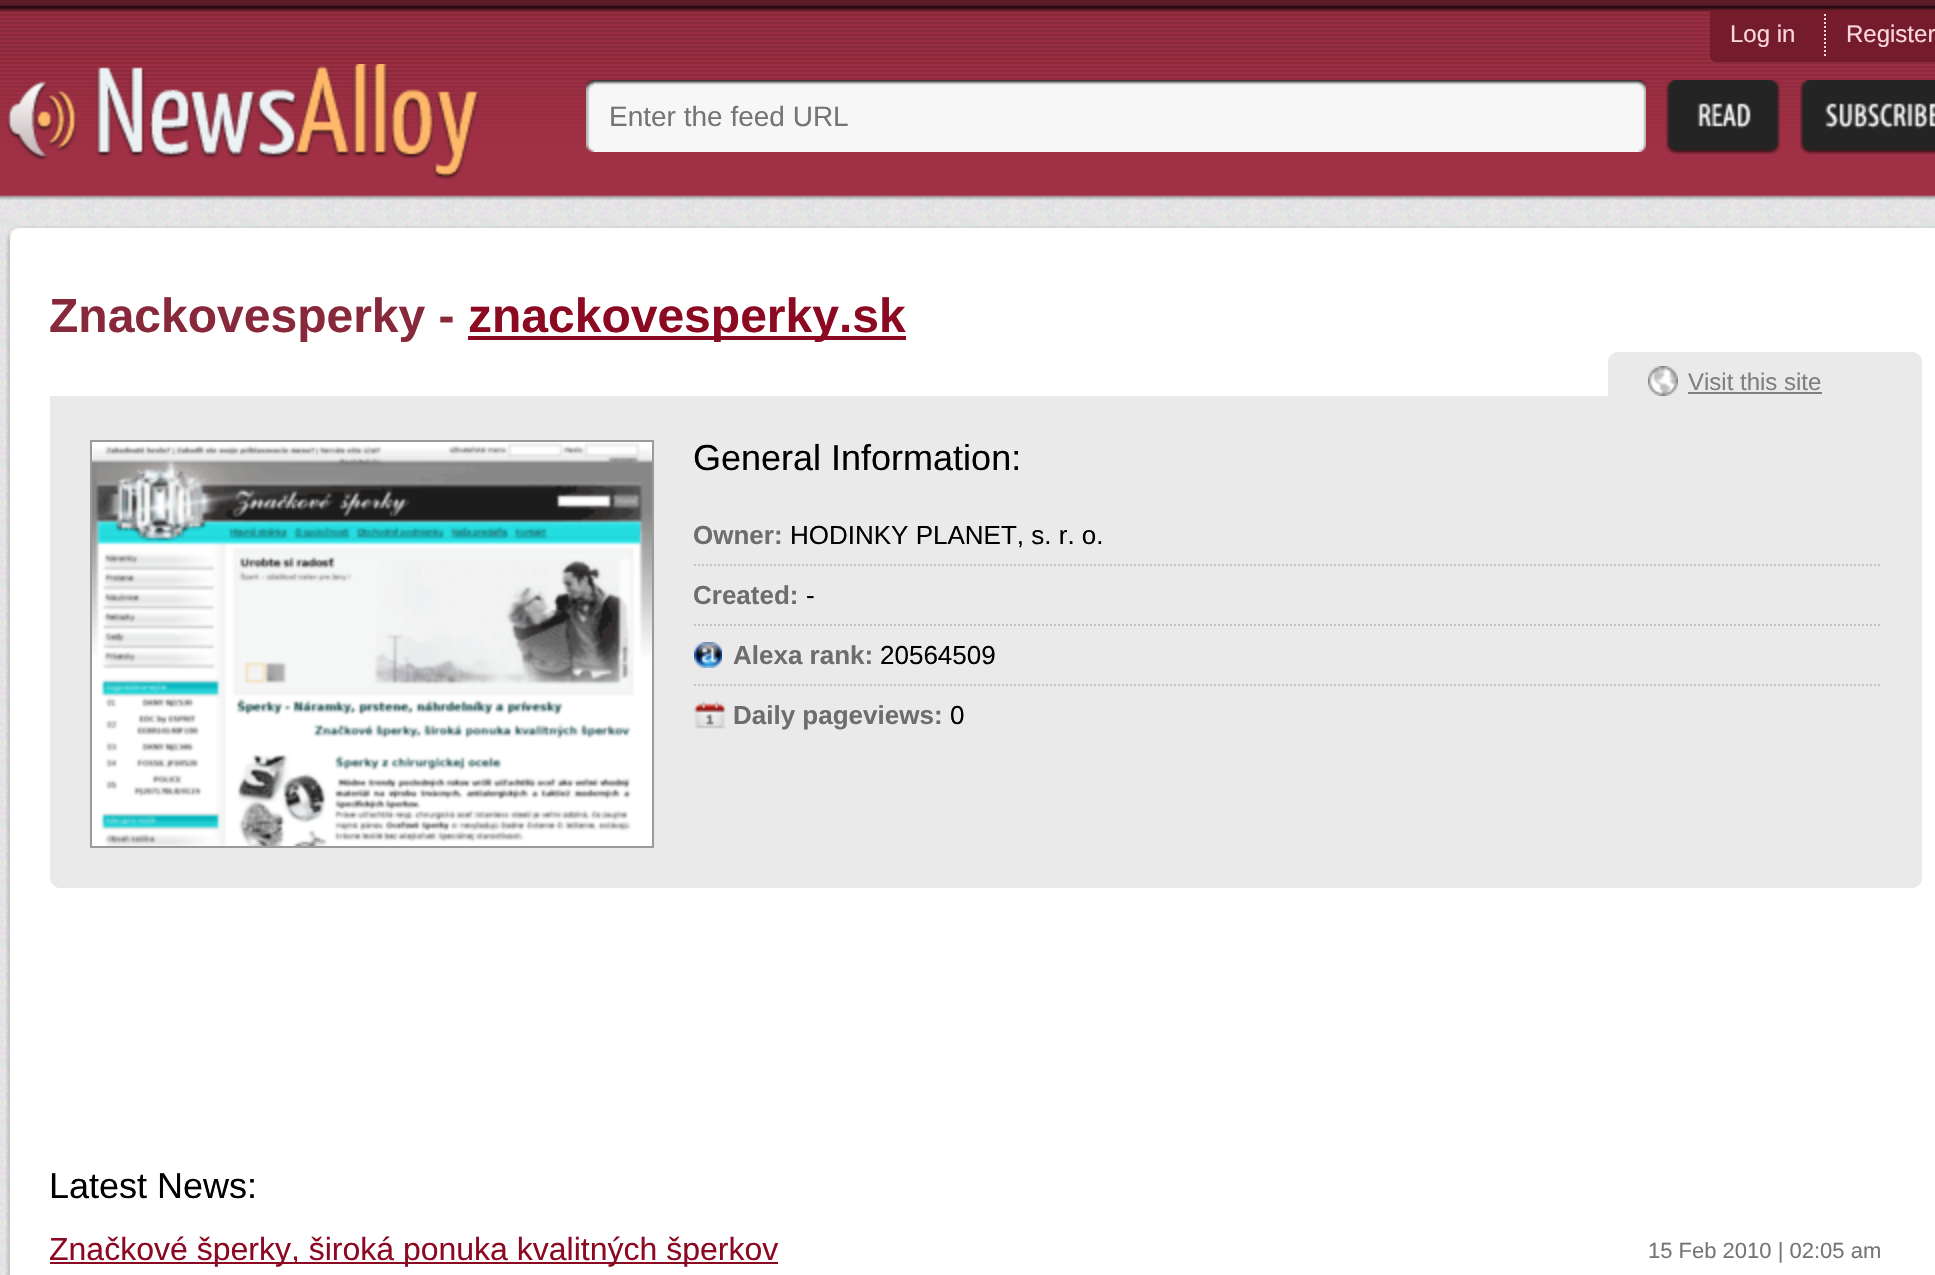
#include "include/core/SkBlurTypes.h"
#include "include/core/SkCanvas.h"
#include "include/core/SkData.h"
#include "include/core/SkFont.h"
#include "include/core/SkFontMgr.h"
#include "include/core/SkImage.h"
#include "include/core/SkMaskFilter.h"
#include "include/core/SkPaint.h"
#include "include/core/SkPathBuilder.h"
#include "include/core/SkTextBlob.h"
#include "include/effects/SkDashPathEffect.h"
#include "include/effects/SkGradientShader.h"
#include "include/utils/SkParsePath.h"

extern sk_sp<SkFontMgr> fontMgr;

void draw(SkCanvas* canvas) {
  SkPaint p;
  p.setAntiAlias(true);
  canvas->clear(SK_ColorWHITE);
  canvas->drawImageRect(SkImages::DeferredFromEncodedData(SkData::MakeFromFileName("images/8.png")), SkRect::MakeLTRB(0, 196, 1935, 1275), SkSamplingOptions());
  canvas->drawImageRect(SkImages::DeferredFromEncodedData(SkData::MakeFromFileName("images/1.png")), SkRect::MakeLTRB(0, 0, 1935, 200), SkSamplingOptions());
  p.setColor(SkColorSetRGB(116, 28, 44));
  canvas->drawPath(SkPathBuilder().moveTo(1710, 10).lineTo(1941, 10).lineTo(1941, 56).cubicTo(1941, 59.5f, 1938.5f, 62, 1935, 62).lineTo(1716, 62).cubicTo(1712.5f, 62, 1710, 59.5f, 1710, 56).close().detach(), p);
  p.setStyle(SkPaint::kStroke_Style);
  p.setStrokeWidth(2);
  p.setColor(SkColorSetRGB(252, 214, 221));
  p.setPathEffect(SkDashPathEffect::Make({{2, 2}}, 0));
  canvas->drawPath(SkPathBuilder().moveTo(1825, 14).lineTo(1825, 58).detach(), p);
  p.setPathEffect(nullptr);
  canvas->drawImageRect(SkImages::DeferredFromEncodedData(SkData::MakeFromFileName("images/2.png")), SkRect::MakeLTRB(6, 64, 480, 180), SkSamplingOptions());
  canvas->drawImageRect(SkImages::DeferredFromEncodedData(SkData::MakeFromFileName("images/3.png")), SkRect::MakeLTRB(586, 80, 594, 152), SkSamplingOptions());
  canvas->drawImageRect(SkImages::DeferredFromEncodedData(SkData::MakeFromFileName("images/4.png")), SkRect::MakeLTRB(1638, 80, 1646, 152), SkSamplingOptions());
  canvas->drawImageRect(SkImages::DeferredFromEncodedData(SkData::MakeFromFileName("images/5.png")), SkRect::MakeLTRB(594, 80, 1638, 152), SkSamplingOptions());
  canvas->drawImageRect(SkImages::DeferredFromEncodedData(SkData::MakeFromFileName("images/6.png")), SkRect::MakeLTRB(1666, 80, 1780, 154), SkSamplingOptions());
  canvas->drawImageRect(SkImages::DeferredFromEncodedData(SkData::MakeFromFileName("images/7.png")), SkRect::MakeLTRB(1800, 80, 1935, 154), SkSamplingOptions());
  p.setStyle(SkPaint::kFill_Style);
  p.setColor(SkColorSetARGB(13, 0, 0, 0));
  canvas->drawRect(SkRect::MakeLTRB(20, 226, 1935, 228), p);
  canvas->drawImageRect(SkImages::DeferredFromEncodedData(SkData::MakeFromFileName("images/9.png")), SkRect::MakeLTRB(6, 240, 10, 1275), SkSamplingOptions());
  p.setColor(SK_ColorWHITE);
  canvas->drawRect(SkRect::MakeLTRB(10, 228, 1935, 1275), p);
  canvas->drawImageRect(SkImages::DeferredFromEncodedData(SkData::MakeFromFileName("images/10.png")), SkRect::MakeLTRB(6, 226, 20, 240), SkSamplingOptions());
  p.setColor(SkColorSetRGB(140, 9, 34));
  canvas->drawRect(SkRect::MakeLTRB(468, 336, 906, 340), p);
  p.setColor(SkColorSetRGB(234, 234, 234));
  canvas->drawRect(SkRect::MakeLTRB(50, 396, 1608, 400), p);
  canvas->drawPath(SkPathBuilder().moveTo(50, 400).lineTo(1922, 400).lineTo(1922, 878).cubicTo(1922, 883.5f, 1917.5f, 888, 1912, 888).lineTo(60, 888).cubicTo(54.5f, 888, 50, 883.5f, 50, 878).close().detach(), p);
  canvas->drawPath(SkPathBuilder().moveTo(1618, 352).lineTo(1912, 352).cubicTo(1917.5f, 352, 1922, 356.5f, 1922, 362).lineTo(1922, 406).lineTo(1608, 406).lineTo(1608, 362).cubicTo(1608, 356.5f, 1612.5f, 352, 1618, 352).close().detach(), p);
  canvas->drawImageRect(SkImages::DeferredFromEncodedData(SkData::MakeFromFileName("images/11.png")), SkRect::MakeLTRB(1648, 366, 1678, 396), SkSamplingOptions());
  p.setColor(SkColorSetRGB(127, 127, 127));
  canvas->drawRect(SkRect::MakeLTRB(1688, 392, 1822, 394), p);
  p.setStyle(SkPaint::kStroke_Style);
  p.setColor(SkColorSetRGB(154, 154, 154));
  canvas->drawRect(SkRect::MakeLTRB(91, 441, 653, 847), p);
  canvas->drawImageRect(SkImages::DeferredFromEncodedData(SkData::MakeFromFileName("images/12.png")), SkRect::MakeLTRB(92, 442, 652, 846), SkSamplingOptions());
  p.setColor(SkColorSetRGB(193, 193, 193));
  p.setPathEffect(SkDashPathEffect::Make({{2, 2}}, 0));
  canvas->drawPath(SkPathBuilder().moveTo(694, 565).lineTo(1882, 565).detach(), p);
  p.setPathEffect(nullptr);
  p.setPathEffect(SkDashPathEffect::Make({{2, 2}}, 0));
  canvas->drawPath(SkPathBuilder().moveTo(694, 625).lineTo(1882, 625).detach(), p);
  p.setPathEffect(nullptr);
  canvas->drawImageRect(SkImages::DeferredFromEncodedData(SkData::MakeFromFileName("images/13.png")), SkRect::MakeLTRB(694, 642, 722, 668), SkSamplingOptions());
  p.setPathEffect(SkDashPathEffect::Make({{2, 2}}, 0));
  canvas->drawPath(SkPathBuilder().moveTo(694, 685).lineTo(1882, 685).detach(), p);
  p.setPathEffect(nullptr);
  canvas->drawImageRect(SkImages::DeferredFromEncodedData(SkData::MakeFromFileName("images/14.png")), SkRect::MakeLTRB(694, 701, 726, 729), SkSamplingOptions());
  p.setStyle(SkPaint::kFill_Style);
  p.setColor(SkColorSetRGB(140, 9, 34));
  canvas->drawRect(SkRect::MakeLTRB(50, 1262, 778, 1264), p);
  SkFont font1(fontMgr->matchFamilyStyle("Liberation Sans", SkFontStyle::Normal()), 24);
  font1.setSubpixel(true);
  p.setColor(SkColorSetRGB(252, 214, 221));
  canvas->drawString("Log in", 1730, 42, font1, p);
  canvas->drawString("Register", 1846, 42, font1, p);
  SkFont font2(fontMgr->matchFamilyStyle("Liberation Sans", SkFontStyle::Normal()), 28);
  font2.setSubpixel(true);
  p.setColor(SkColorSetRGB(117, 117, 117));
  canvas->drawString("Enter the feed URL", 609, 126, font2, p);
  SkFont font3(fontMgr->matchFamilyStyle("Liberation Sans", SkFontStyle::Bold()), 48);
  font3.setSubpixel(true);
  p.setColor(SkColorSetRGB(136, 41, 59));
  canvas->drawString("Znackovesperky -", 49, 332, font3, p);
  p.setColor(SkColorSetRGB(140, 9, 34));
  canvas->drawString("znackovesperky.sk", 468, 332, font3, p);
  p.setColor(SkColorSetRGB(127, 127, 127));
  canvas->drawString("Visit this site", 1688, 390, font1, p);
  SkFont font4(fontMgr->matchFamilyStyle("Liberation Sans", SkFontStyle::Normal()), 36);
  font4.setSubpixel(true);
  p.setColor(SK_ColorBLACK);
  canvas->drawString("General Information:", 693, 470, font4, p);
  SkFont font5(fontMgr->matchFamilyStyle("Liberation Sans", SkFontStyle::Bold()), 26);
  font5.setSubpixel(true);
  p.setColor(SkColorSetRGB(109, 109, 109));
  canvas->drawString("Owner:", 693, 544, font5, p);
  SkFont font6(fontMgr->matchFamilyStyle("Liberation Sans", SkFontStyle::Normal()), 26);
  font6.setSubpixel(true);
  p.setColor(SK_ColorBLACK);
  canvas->drawString("HODINKY PLANET, s. r. o.", 790, 544, font6, p);
  p.setColor(SkColorSetRGB(109, 109, 109));
  canvas->drawString("Created:", 693, 604, font5, p);
  p.setColor(SK_ColorBLACK);
  canvas->drawString("-", 806, 604, font6, p);
  p.setColor(SkColorSetRGB(109, 109, 109));
  canvas->drawString("Alexa rank:", 733, 664, font5, p);
  p.setColor(SK_ColorBLACK);
  canvas->drawString("20564509", 880, 664, font6, p);
  p.setColor(SkColorSetRGB(109, 109, 109));
  canvas->drawString("Daily pageviews:", 733, 724, font5, p);
  p.setColor(SK_ColorBLACK);
  canvas->drawString("0", 950, 724, font6, p);
  canvas->drawString("Latest News:", 49, 1198, font4, p);
  SkFont font7(fontMgr->matchFamilyStyle("Liberation Sans", SkFontStyle::Normal()), 32);
  font7.setSubpixel(true);
  p.setColor(SkColorSetRGB(140, 9, 34));
  canvas->drawString("Značkové šperky, široká ponuka kvalitných šperkov", 49, 1260, font7, p);
  SkFont font8(fontMgr->matchFamilyStyle("Liberation Sans", SkFontStyle::Normal()), 22);
  font8.setSubpixel(true);
  p.setColor(SkColorSetRGB(117, 117, 117));
  canvas->drawString("15 Feb 2010 | 02:05 am", 1648, 1258, font8, p);
}
